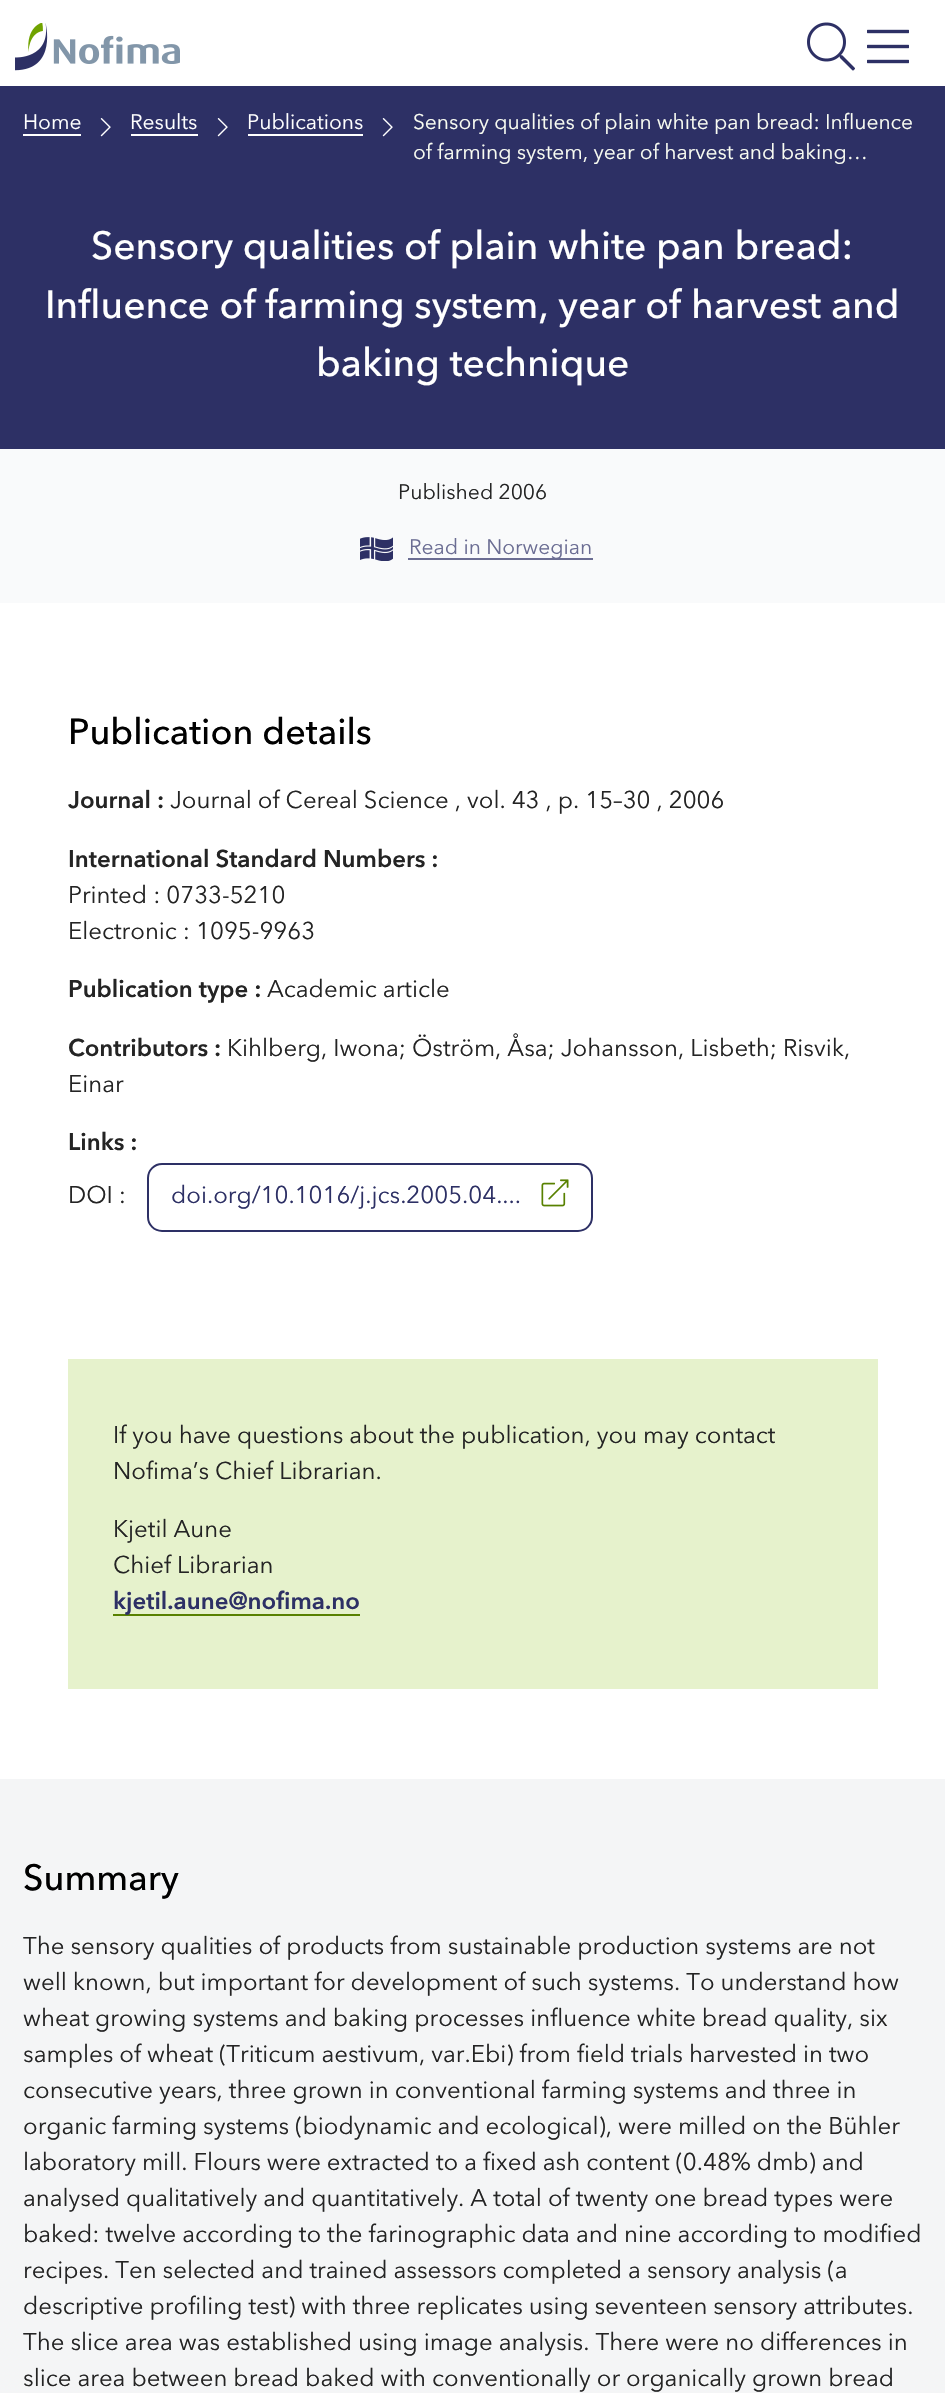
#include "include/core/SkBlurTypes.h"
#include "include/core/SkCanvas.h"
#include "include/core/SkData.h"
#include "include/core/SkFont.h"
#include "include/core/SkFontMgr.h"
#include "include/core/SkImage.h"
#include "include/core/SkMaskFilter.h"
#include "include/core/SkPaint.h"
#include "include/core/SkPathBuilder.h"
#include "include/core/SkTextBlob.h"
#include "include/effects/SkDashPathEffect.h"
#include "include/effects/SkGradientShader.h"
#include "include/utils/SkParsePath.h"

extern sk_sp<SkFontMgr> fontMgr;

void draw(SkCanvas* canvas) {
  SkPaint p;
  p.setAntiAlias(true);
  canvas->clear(SK_ColorWHITE);
  canvas->drawImageRect(SkImages::DeferredFromEncodedData(SkData::MakeFromFileName("images/1.png")), SkRect::MakeLTRB(15, 23, 180, 71), SkSamplingOptions());
  canvas->drawImageRect(SkImages::DeferredFromEncodedData(SkData::MakeFromFileName("images/2.png")), SkRect::MakeLTRB(807, 22, 855, 71), SkSamplingOptions());
  canvas->drawImageRect(SkImages::DeferredFromEncodedData(SkData::MakeFromFileName("images/3.png")), SkRect::MakeLTRB(867, 29, 909, 64), SkSamplingOptions());
  p.setColor(SkColorSetRGB(45, 48, 101));
  canvas->drawRect(SkRect::MakeLTRB(0, 86, 945, 449), p);
  p.setColor(SK_ColorWHITE);
  canvas->drawRect(SkRect::MakeLTRB(23, 134, 81, 136), p);
  canvas->drawImageRect(SkImages::DeferredFromEncodedData(SkData::MakeFromFileName("images/4.png")), SkRect::MakeLTRB(100, 118, 111, 137), SkSamplingOptions());
  canvas->drawRect(SkRect::MakeLTRB(131, 134, 198, 136), p);
  canvas->drawImageRect(SkImages::DeferredFromEncodedData(SkData::MakeFromFileName("images/4.png")), SkRect::MakeLTRB(217, 118, 228, 137), SkSamplingOptions());
  canvas->drawRect(SkRect::MakeLTRB(248, 134, 363, 136), p);
  canvas->drawImageRect(SkImages::DeferredFromEncodedData(SkData::MakeFromFileName("images/4.png")), SkRect::MakeLTRB(382, 118, 393, 137), SkSamplingOptions());
  p.setColor(SkColorSetRGB(249, 250, 251));
  canvas->drawRect(SkRect::MakeLTRB(0, 449, 945, 603), p);
  canvas->drawImageRect(SkImages::DeferredFromEncodedData(SkData::MakeFromFileName("images/5.png")), SkRect::MakeLTRB(360, 537, 393, 561), SkSamplingOptions());
  p.setColor(SkColorSetRGB(107, 109, 147));
  canvas->drawRect(SkRect::MakeLTRB(408, 558, 593, 560), p);
  p.setStyle(SkPaint::kStroke_Style);
  p.setStrokeWidth(2);
  p.setColor(SkColorSetRGB(45, 48, 101));
  canvas->drawRoundRect(SkRect::MakeLTRB(148, 1164, 592, 1231), 14, 14, p);
  canvas->drawImageRect(SkImages::DeferredFromEncodedData(SkData::MakeFromFileName("images/6.png")), SkRect::MakeLTRB(541, 1179, 569, 1207), SkSamplingOptions());
  p.setStyle(SkPaint::kFill_Style);
  p.setColor(SkColorSetRGB(230, 242, 204));
  canvas->drawRect(SkRect::MakeLTRB(68, 1359, 878, 1689), p);
  p.setColor(SkColorSetRGB(88, 129, 0));
  canvas->drawRect(SkRect::MakeLTRB(113, 1614, 360, 1616), p);
  p.setColor(SkColorSetRGB(244, 245, 246));
  canvas->drawRect(SkRect::MakeLTRB(0, 1779, 945, 2393), p);
  SkFont font1(fontMgr->matchFamilyStyle("Avenir Next", SkFontStyle::Normal()), 21);
  font1.setSubpixel(true);
  p.setColor(SK_ColorWHITE);
  canvas->drawString("Home", 23, 129, font1, p);
  canvas->drawString("Results", 130, 129, font1, p);
  canvas->drawString("Publications", 247, 129, font1, p);
  p.setColor(SkColorSetRGB(249, 252, 242));
  canvas->drawString("Sensory qualities of plain white pan bread: Influence", 413, 129, font1, p);
  canvas->drawString("of farming system, year of harvest and baking…", 413, 159, font1, p);
  SkFont font2(fontMgr->matchFamilyStyle("Avenir Next", SkFontStyle(500, SkFontStyle::kNormal_Width, SkFontStyle::kUpright_Slant)), 39);
  font2.setSubpixel(true);
  p.setColor(SK_ColorWHITE);
  canvas->drawString("Sensory qualities of plain white pan bread:", 91, 259, font2, p);
  canvas->drawString("Influence of farming system, year of harvest and", 45, 318, font2, p);
  canvas->drawString("baking technique", 316, 376, font2, p);
  p.setColor(SkColorSetRGB(36, 36, 36));
  canvas->drawString("Published 2006", 398, 499, font1, p);
  p.setColor(SkColorSetRGB(107, 109, 147));
  canvas->drawString("Read in Norwegian", 409, 554, font1, p);
  SkFont font3(fontMgr->matchFamilyStyle("Avenir Next", SkFontStyle(500, SkFontStyle::kNormal_Width, SkFontStyle::kUpright_Slant)), 36);
  font3.setSubpixel(true);
  p.setColor(SK_ColorBLACK);
  canvas->drawString("Publication details", 68, 744, font3, p);
  SkFont font4(fontMgr->matchFamilyStyle("Avenir Next", SkFontStyle::Bold()), 24);
  font4.setSubpixel(true);
  p.setColor(SkColorSetRGB(36, 36, 36));
  canvas->drawString("Journal :", 68, 808, font4, p);
  SkFont font5(fontMgr->matchFamilyStyle("Avenir Next", SkFontStyle::Normal()), 24);
  font5.setSubpixel(true);
  canvas->drawString("Journal of Cereal Science , vol. 43 , p. 15–30 , 2006", 170, 808, font5, p);
  canvas->drawString("International Standard Numbers :", 68, 867, font4, p);
  canvas->drawString("Printed : 0733-5210", 68, 903, font5, p);
  canvas->drawString("Electronic : 1095-9963", 68, 939, font5, p);
  canvas->drawString("Publication type :", 68, 997, font4, p);
  canvas->drawString("Academic article", 267, 997, font5, p);
  canvas->drawString("Contributors :", 68, 1056, font4, p);
  canvas->drawString("Kihlberg, Iwona; Öström, Åsa; Johansson, Lisbeth; Risvik,", 227, 1056, font5, p);
  canvas->drawString("Einar", 68, 1092, font5, p);
  canvas->drawString("Links :", 68, 1150, font4, p);
  canvas->drawString("DOI :", 68, 1203, font5, p);
  p.setColor(SkColorSetRGB(45, 48, 101));
  canvas->drawString("doi.org/10.1016/j.jcs.2005.04....", 171, 1203, font5, p);
  p.setColor(SkColorSetRGB(36, 36, 36));
  canvas->drawString("If you have questions about the publication, you may contact", 113, 1443, font5, p);
  canvas->drawString("Nofima’s Chief Librarian.", 113, 1479, font5, p);
  canvas->drawString("Kjetil Aune", 113, 1537, font5, p);
  canvas->drawString("Chief Librarian", 113, 1573, font5, p);
  p.setColor(SkColorSetRGB(45, 48, 101));
  canvas->drawString("kjetil.aune@nofima.no", 113, 1609, font4, p);
  p.setColor(SK_ColorBLACK);
  canvas->drawString("Summary", 23, 1890, font3, p);
  p.setColor(SkColorSetRGB(36, 36, 36));
  canvas->drawString("The sensory qualities of products from sustainable production systems are not", 23, 1954, font5, p);
  canvas->drawString("well known, but important for development of such systems. To understand how", 23, 1990, font5, p);
  canvas->drawString("wheat growing systems and baking processes influence white bread quality, six", 23, 2026, font5, p);
  canvas->drawString("samples of wheat (Triticum aestivum, var.Ebi) from field trials harvested in two", 23, 2062, font5, p);
  canvas->drawString("consecutive years, three grown in conventional farming systems and three in", 23, 2098, font5, p);
  canvas->drawString("organic farming systems (biodynamic and ecological), were milled on the Bühler", 23, 2134, font5, p);
  canvas->drawString("laboratory mill. Flours were extracted to a fixed ash content (0.48% dmb) and", 23, 2170, font5, p);
  canvas->drawString("analysed qualitatively and quantitatively. A total of twenty one bread types were", 23, 2206, font5, p);
  canvas->drawString("baked: twelve according to the farinographic data and nine according to modified", 23, 2242, font5, p);
  canvas->drawString("recipes. Ten selected and trained assessors completed a sensory analysis (a", 23, 2278, font5, p);
  canvas->drawString("descriptive profiling test) with three replicates using seventeen sensory attributes.", 23, 2314, font5, p);
  canvas->drawString("The slice area was established using image analysis. There were no differences in", 23, 2350, font5, p);
  canvas->drawString("slice area between bread baked with conventionally or organically grown bread", 23, 2386, font5, p);
}
